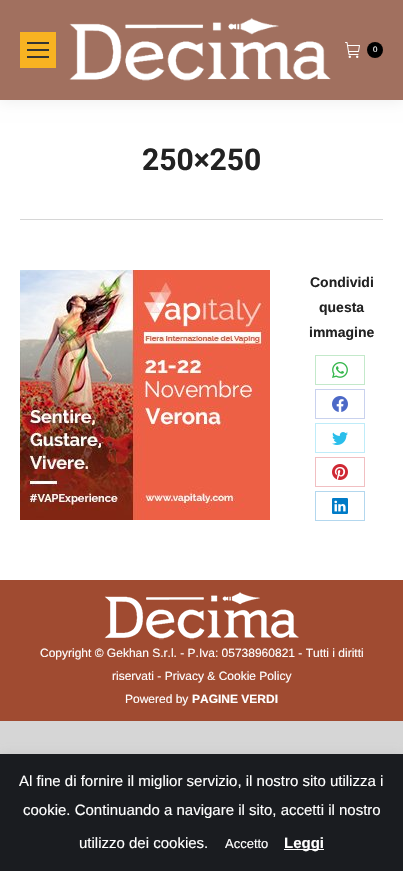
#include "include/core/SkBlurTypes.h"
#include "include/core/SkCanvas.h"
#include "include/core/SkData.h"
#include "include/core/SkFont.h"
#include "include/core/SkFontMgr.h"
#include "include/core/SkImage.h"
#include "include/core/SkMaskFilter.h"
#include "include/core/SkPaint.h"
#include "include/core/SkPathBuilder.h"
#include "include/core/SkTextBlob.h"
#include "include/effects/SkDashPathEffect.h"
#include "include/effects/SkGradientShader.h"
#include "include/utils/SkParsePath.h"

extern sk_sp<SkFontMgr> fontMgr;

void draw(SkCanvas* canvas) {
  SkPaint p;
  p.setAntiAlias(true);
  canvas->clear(SkColorSetRGB(214, 214, 214));
  p.setColor(SK_ColorWHITE);
  canvas->drawRect(SkRect::MakeLTRB(0, 100, 403, 580), p);
  p.setColor(SkColorSetARGB(18, 0, 0, 0));
  p.setMaskFilter(SkMaskFilter::MakeBlur(kNormal_SkBlurStyle, 7.5f));
  canvas->drawRect(SkRect::MakeLTRB(-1, -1, 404, 101), p);
  p.setMaskFilter(nullptr);
  p.setColor(SkColorSetRGB(161, 112, 95));
  canvas->drawRect(SkRect::MakeLTRB(0, 0, 403, 100), p);
  p.setColor(SkColorSetRGB(248, 179, 34));
  canvas->drawRect(SkRect::MakeLTRB(20, 32, 56, 68), p);
  p.setColor(SkColorSetRGB(51, 51, 51));
  canvas->drawRect(SkRect::MakeLTRB(27, 42, 49, 44), p);
  canvas->drawRect(SkRect::MakeLTRB(27, 49, 49, 51), p);
  canvas->drawRect(SkRect::MakeLTRB(27, 56, 49, 58), p);
  canvas->drawImageRect(SkImages::DeferredFromEncodedData(SkData::MakeFromFileName("images/1.png")), SkRect::MakeLTRB(69, 18, 331, 81), SkSamplingOptions());
  canvas->drawImageRect(SkImages::DeferredFromEncodedData(SkData::MakeFromFileName("images/2.png")), SkRect::MakeLTRB(345, 42, 360, 58), SkSamplingOptions());
  p.setColor(SK_ColorBLACK);
  canvas->drawCircle(375, 50, 8, p);
  p.setColor(SkColorSetRGB(214, 214, 214));
  canvas->drawRect(SkRect::MakeLTRB(20, 219, 383, 220), p);
  canvas->drawImageRect(SkImages::DeferredFromEncodedData(SkData::MakeFromFileName("images/3.png")), SkRect::MakeLTRB(20, 270, 270, 520), SkSamplingOptions());
  p.setStyle(SkPaint::kStroke_Style);
  p.setStrokeWidth(1);
  p.setColor(SkColorSetRGB(195, 233, 202));
  canvas->drawRect(SkRect::MakeLTRB(315.5f, 355.5f, 364.5f, 384.5f), p);
  canvas->drawImageRect(SkImages::DeferredFromEncodedData(SkData::MakeFromFileName("images/4.png")), SkRect::MakeLTRB(332, 362, 348, 378), SkSamplingOptions());
  p.setColor(SkColorSetRGB(201, 210, 238));
  canvas->drawRect(SkRect::MakeLTRB(315.5f, 389.5f, 364.5f, 418.5f), p);
  canvas->drawImageRect(SkImages::DeferredFromEncodedData(SkData::MakeFromFileName("images/5.png")), SkRect::MakeLTRB(332, 396, 348, 412), SkSamplingOptions());
  p.setColor(SkColorSetRGB(191, 236, 249));
  canvas->drawRect(SkRect::MakeLTRB(315.5f, 423.5f, 364.5f, 452.5f), p);
  canvas->drawImageRect(SkImages::DeferredFromEncodedData(SkData::MakeFromFileName("images/6.png")), SkRect::MakeLTRB(332, 432, 348, 445), SkSamplingOptions());
  p.setColor(SkColorSetRGB(241, 191, 194));
  canvas->drawRect(SkRect::MakeLTRB(315.5f, 457.5f, 364.5f, 486.5f), p);
  canvas->drawImageRect(SkImages::DeferredFromEncodedData(SkData::MakeFromFileName("images/7.png")), SkRect::MakeLTRB(332, 464, 348, 480), SkSamplingOptions());
  p.setColor(SkColorSetRGB(179, 215, 238));
  canvas->drawRect(SkRect::MakeLTRB(315.5f, 491.5f, 364.5f, 520.5f), p);
  canvas->drawImageRect(SkImages::DeferredFromEncodedData(SkData::MakeFromFileName("images/8.png")), SkRect::MakeLTRB(332, 498, 348, 514), SkSamplingOptions());
  p.setStyle(SkPaint::kFill_Style);
  p.setColor(SkColorSetRGB(160, 75, 49));
  canvas->drawRect(SkRect::MakeLTRB(0, 580, 403, 721), p);
  canvas->drawImageRect(SkImages::DeferredFromEncodedData(SkData::MakeFromFileName("images/9.png")), SkRect::MakeLTRB(104, 592, 299, 640), SkSamplingOptions());
  p.setColor(SkColorSetARGB(77, 172, 171, 171));
  p.setMaskFilter(SkMaskFilter::MakeBlur(kNormal_SkBlurStyle, 5));
  canvas->drawRect(SkRect::MakeLTRB(0, 753, 403, 870), p);
  p.setMaskFilter(nullptr);
  p.setColor(SkColorSetRGB(26, 28, 32));
  canvas->drawRect(SkRect::MakeLTRB(0, 754, 403, 871), p);
  p.setColor(SK_ColorWHITE);
  canvas->drawRect(SkRect::MakeLTRB(284, 849, 324, 850), p);
  SkFont font1(fontMgr->matchFamilyStyle("Liberation Sans", SkFontStyle::Normal()), 8);
  font1.setSubpixel(true);
  canvas->drawString("0", 373, 52, font1, p);
  SkFont font2(fontMgr->matchFamilyStyle("Roboto", SkFontStyle::Bold()), 30);
  font2.setSubpixel(true);
  p.setColor(SkColorSetRGB(34, 34, 34));
  canvas->drawString("250×250", 142, 170, font2, p);
  SkFont font3(fontMgr->matchFamilyStyle("Liberation Sans", SkFontStyle::Bold()), 14);
  font3.setSubpixel(true);
  canvas->drawString("Condividi", 310, 287, font3, p);
  canvas->drawString("questa", 319, 312, font3, p);
  canvas->drawString("immagine", 309, 337, font3, p);
  SkFont font4(fontMgr->matchFamilyStyle("Liberation Sans", SkFontStyle::Normal()), 12);
  font4.setSubpixel(true);
  p.setColor(SK_ColorWHITE);
  canvas->drawString("Copyright © Gekhan S.r.l. - P.Iva: 05738960821 - Tutti i diritti", 40, 657, font4, p);
  canvas->drawString("riservati - Privacy & Cookie Policy", 112, 680, font4, p);
  canvas->drawString("Powered by", 125, 703, font4, p);
  SkFont font5(fontMgr->matchFamilyStyle("Liberation Sans", SkFontStyle::Bold()), 12);
  font5.setSubpixel(true);
  canvas->drawString("PAGINE VERDI", 192, 703, font5, p);
  SkFont font6(fontMgr->matchFamilyStyle("Liberation Sans", SkFontStyle::Normal()), 15);
  font6.setSubpixel(true);
  canvas->drawString("Al fine di fornire il miglior servizio, il nostro sito utilizza i", 19, 786, font6, p);
  canvas->drawString("cookie. Continuando a navigare il sito, accetti il nostro", 23, 815, font6, p);
  canvas->drawString("utilizzo dei cookies.", 79, 848, font6, p);
  SkFont font7(fontMgr->matchFamilyStyle("Liberation Sans", SkFontStyle::Normal()), 13);
  font7.setSubpixel(true);
  canvas->drawString("Accetto", 225, 848, font7, p);
  SkFont font8(fontMgr->matchFamilyStyle("Liberation Sans", SkFontStyle::Bold()), 15);
  font8.setSubpixel(true);
  canvas->drawString("Leggi", 284, 848, font8, p);
}
